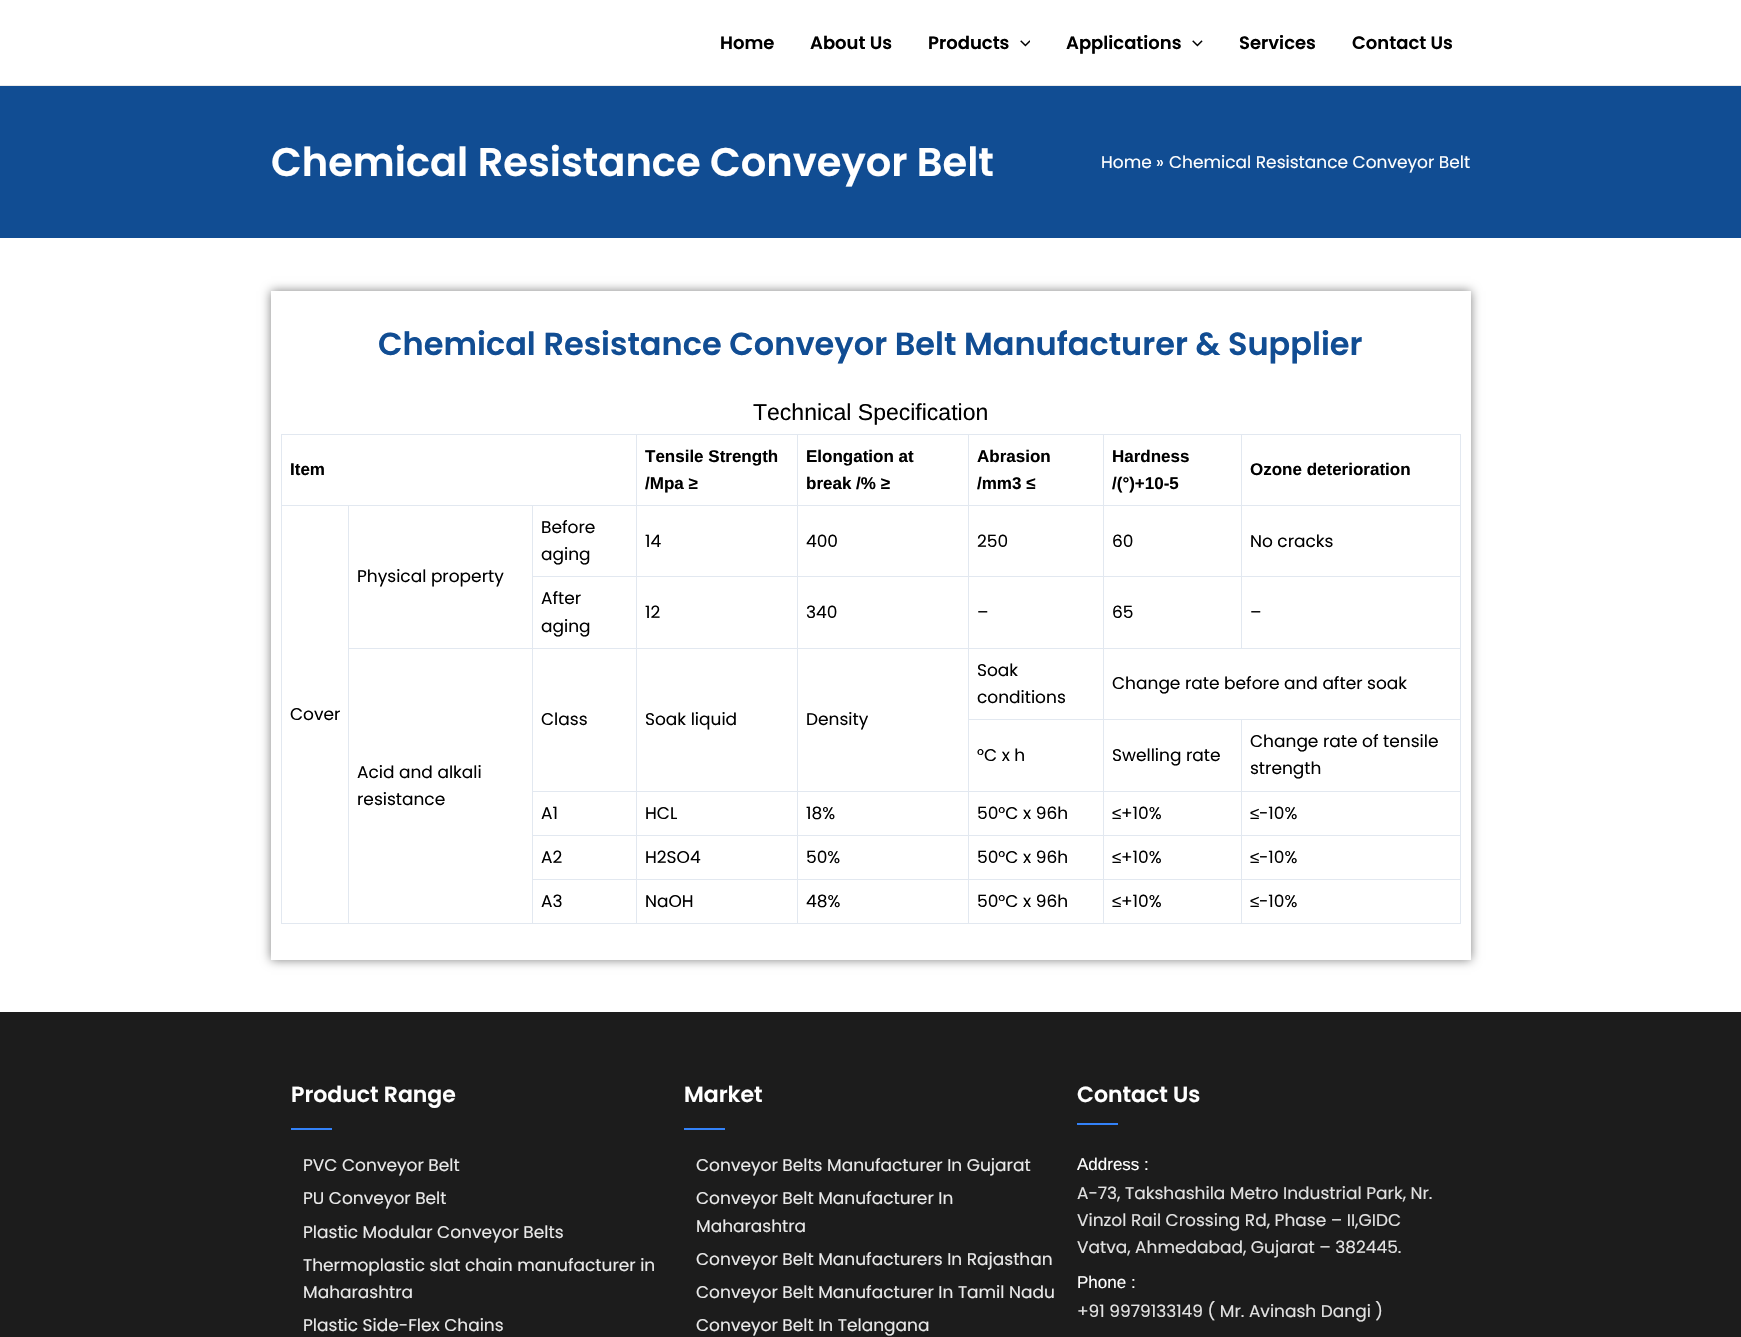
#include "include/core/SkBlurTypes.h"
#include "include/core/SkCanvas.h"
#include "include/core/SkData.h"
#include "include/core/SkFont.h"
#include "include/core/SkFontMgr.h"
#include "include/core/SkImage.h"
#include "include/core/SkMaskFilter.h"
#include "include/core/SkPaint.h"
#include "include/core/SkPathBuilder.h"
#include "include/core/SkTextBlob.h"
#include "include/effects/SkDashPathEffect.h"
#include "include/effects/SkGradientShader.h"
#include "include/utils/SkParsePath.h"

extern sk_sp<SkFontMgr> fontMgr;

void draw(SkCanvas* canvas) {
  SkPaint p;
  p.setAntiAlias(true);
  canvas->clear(SK_ColorWHITE);
  p.setColor(SkColorSetRGB(234, 234, 234));
  canvas->drawRect(SkRect::MakeLTRB(0, 85, 1741, 86), p);
  canvas->drawImageRect(SkImages::DeferredFromEncodedData(SkData::MakeFromFileName("images/1.png")), SkRect::MakeLTRB(1020, 40, 1030, 47), SkSamplingOptions());
  canvas->drawImageRect(SkImages::DeferredFromEncodedData(SkData::MakeFromFileName("images/2.png")), SkRect::MakeLTRB(1192, 40, 1203, 47), SkSamplingOptions());
  p.setColor(SkColorSetRGB(17, 77, 147));
  canvas->drawRect(SkRect::MakeLTRB(0, 86, 1741, 238), p);
  canvas->save();
  canvas->clipPath(SkPathBuilder(SkPathFillType::kEvenOdd).moveTo(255, 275).lineTo(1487, 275).lineTo(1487, 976).lineTo(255, 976).close().moveTo(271, 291).lineTo(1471, 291).lineTo(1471, 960).lineTo(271, 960).close().detach(), true);
  p.setColor(SkColorSetARGB(128, 0, 0, 0));
  p.setMaskFilter(SkMaskFilter::MakeBlur(kNormal_SkBlurStyle, 5));
  canvas->drawRect(SkRect::MakeLTRB(271, 291, 1471, 960), p);
  p.setMaskFilter(nullptr);
  canvas->restore();
  p.setColor(SkColorSetRGB(226, 232, 240));
  canvas->drawRect(SkRect::MakeLTRB(281, 434, 1461, 435), p);
  canvas->drawRect(SkRect::MakeLTRB(281, 434, 282, 924), p);
  canvas->drawRect(SkRect::MakeLTRB(636, 435, 637, 924), p);
  canvas->drawRect(SkRect::MakeLTRB(282, 505, 637, 506), p);
  canvas->drawRect(SkRect::MakeLTRB(797, 435, 798, 924), p);
  canvas->drawRect(SkRect::MakeLTRB(637, 505, 798, 506), p);
  canvas->drawRect(SkRect::MakeLTRB(968, 435, 969, 924), p);
  canvas->drawRect(SkRect::MakeLTRB(798, 505, 969, 506), p);
  canvas->drawRect(SkRect::MakeLTRB(1103, 435, 1104, 924), p);
  canvas->drawRect(SkRect::MakeLTRB(969, 505, 1104, 506), p);
  canvas->drawRect(SkRect::MakeLTRB(1241, 435, 1242, 649), p);
  canvas->drawRect(SkRect::MakeLTRB(1104, 505, 1242, 506), p);
  canvas->drawRect(SkRect::MakeLTRB(1460, 435, 1461, 924), p);
  canvas->drawRect(SkRect::MakeLTRB(1242, 505, 1461, 506), p);
  canvas->drawRect(SkRect::MakeLTRB(533, 576, 1461, 577), p);
  canvas->drawRect(SkRect::MakeLTRB(532, 506, 533, 924), p);
  canvas->drawRect(SkRect::MakeLTRB(349, 648, 1461, 649), p);
  canvas->drawRect(SkRect::MakeLTRB(348, 506, 349, 924), p);
  canvas->drawRect(SkRect::MakeLTRB(282, 923, 349, 924), p);
  canvas->drawRect(SkRect::MakeLTRB(969, 719, 1461, 720), p);
  canvas->drawRect(SkRect::MakeLTRB(533, 791, 1104, 792), p);
  canvas->drawRect(SkRect::MakeLTRB(349, 923, 1104, 924), p);
  canvas->drawRect(SkRect::MakeLTRB(1241, 720, 1242, 924), p);
  canvas->drawRect(SkRect::MakeLTRB(1104, 791, 1461, 792), p);
  canvas->drawRect(SkRect::MakeLTRB(533, 835, 1461, 836), p);
  canvas->drawRect(SkRect::MakeLTRB(533, 879, 1461, 880), p);
  canvas->drawRect(SkRect::MakeLTRB(1104, 923, 1461, 924), p);
  p.setColor(SkColorSetRGB(28, 28, 28));
  canvas->drawRect(SkRect::MakeLTRB(0, 1012, 1741, 1337), p);
  p.setColor(SkColorSetRGB(51, 130, 248));
  canvas->drawRect(SkRect::MakeLTRB(291, 1128, 332, 1130), p);
  canvas->drawRect(SkRect::MakeLTRB(684, 1128, 725, 1130), p);
  canvas->drawRect(SkRect::MakeLTRB(1077, 1123, 1118, 1125), p);
  SkFont font1(fontMgr->matchFamilyStyle("Poppins", SkFontStyle(600, SkFontStyle::kNormal_Width, SkFontStyle::kUpright_Slant)), 18);
  font1.setSubpixel(true);
  p.setColor(SK_ColorBLACK);
  canvas->drawString("Home", 720, 49, font1, p);
  canvas->drawString("About Us", 810, 49, font1, p);
  canvas->drawString("Products", 928, 49, font1, p);
  canvas->drawString("Applications", 1066, 49, font1, p);
  canvas->drawString("Services", 1239, 49, font1, p);
  canvas->drawString("Contact Us", 1352, 49, font1, p);
  SkFont font2(fontMgr->matchFamilyStyle("Poppins", SkFontStyle(600, SkFontStyle::kNormal_Width, SkFontStyle::kUpright_Slant)), 40);
  font2.setSubpixel(true);
  p.setColor(SK_ColorWHITE);
  canvas->drawString("Chemical Resistance Conveyor Belt", 271, 176, font2, p);
  SkFont font3(fontMgr->matchFamilyStyle("Poppins", SkFontStyle::Normal()), 17);
  font3.setSubpixel(true);
  canvas->drawString("Home", 1101, 168, font3, p);
  canvas->drawString("»", 1156, 168, font3, p);
  canvas->drawString("Chemical Resistance Conveyor Belt", 1169, 168, font3, p);
  SkFont font4(fontMgr->matchFamilyStyle("Poppins", SkFontStyle(600, SkFontStyle::kNormal_Width, SkFontStyle::kUpright_Slant)), 32);
  font4.setSubpixel(true);
  p.setColor(SkColorSetRGB(17, 77, 147));
  canvas->drawString("Chemical Resistance Conveyor Belt Manufacturer & Supplier", 378, 355, font4, p);
  SkFont font5(fontMgr->matchFamilyStyle("Liberation Sans", SkFontStyle::Normal()), 23);
  font5.setSubpixel(true);
  p.setColor(SK_ColorBLACK);
  canvas->drawString("Technical Specification", 753, 420, font5, p);
  SkFont font6(fontMgr->matchFamilyStyle("Liberation Sans", SkFontStyle::Bold()), 17);
  font6.setSubpixel(true);
  canvas->drawString("Item", 290, 475, font6, p);
  canvas->drawString("Tensile Strength", 645, 462, font6, p);
  canvas->drawString("/Mpa ≥", 645, 489, font6, p);
  canvas->drawString("Elongation at", 806, 462, font6, p);
  canvas->drawString("break /% ≥", 806, 489, font6, p);
  canvas->drawString("Abrasion", 977, 462, font6, p);
  canvas->drawString("/mm3 ≤", 977, 489, font6, p);
  canvas->drawString("Hardness", 1112, 462, font6, p);
  canvas->drawString("/(°)+10-5", 1112, 489, font6, p);
  canvas->drawString("Ozone deterioration", 1250, 475, font6, p);
  canvas->drawString("Before", 541, 533, font3, p);
  canvas->drawString("aging", 541, 560, font3, p);
  canvas->drawString("14", 645, 547, font3, p);
  canvas->drawString("400", 806, 547, font3, p);
  canvas->drawString("250", 977, 547, font3, p);
  canvas->drawString("60", 1112, 547, font3, p);
  canvas->drawString("No cracks", 1250, 547, font3, p);
  canvas->drawString("Physical property", 357, 582, font3, p);
  canvas->drawString("Cover", 290, 720, font3, p);
  canvas->drawString("After", 541, 604, font3, p);
  canvas->drawString("aging", 541, 632, font3, p);
  canvas->drawString("12", 645, 618, font3, p);
  canvas->drawString("340", 806, 618, font3, p);
  canvas->drawString("–", 977, 618, font3, p);
  canvas->drawString("65", 1112, 618, font3, p);
  canvas->drawString("–", 1250, 618, font3, p);
  canvas->drawString("Soak", 977, 676, font3, p);
  canvas->drawString("conditions", 977, 703, font3, p);
  canvas->drawString("Change rate before and after soak", 1112, 689, font3, p);
  canvas->drawString("Class", 541, 725, font3, p);
  canvas->drawString("Soak liquid", 645, 725, font3, p);
  canvas->drawString("Density", 806, 725, font3, p);
  canvas->drawString("Acid and alkali", 357, 778, font3, p);
  canvas->drawString("resistance", 357, 805, font3, p);
  canvas->drawString("°C x h", 977, 761, font3, p);
  canvas->drawString("Swelling rate", 1112, 761, font3, p);
  canvas->drawString("Change rate of tensile", 1250, 747, font3, p);
  canvas->drawString("strength", 1250, 774, font3, p);
  canvas->drawString("A1", 541, 819, font3, p);
  canvas->drawString("HCL", 645, 819, font3, p);
  canvas->drawString("18%", 806, 819, font3, p);
  canvas->drawString("50°C x 96h", 977, 819, font3, p);
  SkFont font7(fontMgr->matchFamilyStyle("Liberation Sans", SkFontStyle::Normal()), 17);
  font7.setSubpixel(true);
  canvas->drawString("≤", 1112, 819, font7, p);
  canvas->drawString("+10%", 1121, 819, font3, p);
  canvas->drawString("≤", 1250, 819, font7, p);
  canvas->drawString("-10%", 1259, 819, font3, p);
  canvas->drawString("A2", 541, 863, font3, p);
  canvas->drawString("H2SO4", 645, 863, font3, p);
  canvas->drawString("50%", 806, 863, font3, p);
  canvas->drawString("50°C x 96h", 977, 863, font3, p);
  canvas->drawString("≤", 1112, 863, font7, p);
  canvas->drawString("+10%", 1121, 863, font3, p);
  canvas->drawString("≤", 1250, 863, font7, p);
  canvas->drawString("-10%", 1259, 863, font3, p);
  canvas->drawString("A3", 541, 907, font3, p);
  canvas->drawString("NaOH", 645, 907, font3, p);
  canvas->drawString("48%", 806, 907, font3, p);
  canvas->drawString("50°C x 96h", 977, 907, font3, p);
  canvas->drawString("≤", 1112, 907, font7, p);
  canvas->drawString("+10%", 1121, 907, font3, p);
  canvas->drawString("≤", 1250, 907, font7, p);
  canvas->drawString("-10%", 1259, 907, font3, p);
  SkFont font8(fontMgr->matchFamilyStyle("Poppins", SkFontStyle(600, SkFontStyle::kNormal_Width, SkFontStyle::kUpright_Slant)), 22);
  font8.setSubpixel(true);
  p.setColor(SK_ColorWHITE);
  canvas->drawString("Product Range", 291, 1102, font8, p);
  p.setColor(SkColorSetRGB(234, 234, 234));
  canvas->drawString("PVC Conveyor Belt", 303, 1171, font3, p);
  canvas->drawString("PU Conveyor Belt", 303, 1204, font3, p);
  canvas->drawString("Plastic Modular Conveyor Belts", 303, 1238, font3, p);
  canvas->drawString("Thermoplastic slat chain manufacturer in", 303, 1271, font3, p);
  canvas->drawString("Maharashtra", 303, 1298, font3, p);
  canvas->drawString("Plastic Side-Flex Chains", 303, 1331, font3, p);
  p.setColor(SK_ColorWHITE);
  canvas->drawString("Market", 684, 1102, font8, p);
  p.setColor(SkColorSetRGB(234, 234, 234));
  canvas->drawString("Conveyor Belts Manufacturer In Gujarat", 696, 1171, font3, p);
  canvas->drawString("Conveyor Belt Manufacturer In", 696, 1204, font3, p);
  canvas->drawString("Maharashtra", 696, 1232, font3, p);
  canvas->drawString("Conveyor Belt Manufacturers In Rajasthan", 696, 1265, font3, p);
  canvas->drawString("Conveyor Belt Manufacturer In Tamil Nadu", 696, 1298, font3, p);
  canvas->drawString("Conveyor Belt In Telangana", 696, 1331, font3, p);
  p.setColor(SK_ColorWHITE);
  canvas->drawString("Contact Us", 1077, 1102, font8, p);
  canvas->drawString("Address :", 1077, 1170, font7, p);
  p.setColor(SkColorSetRGB(226, 226, 226));
  canvas->drawString("A-73, Takshashila Metro Industrial Park, Nr.", 1077, 1199, font3, p);
  canvas->drawString("Vinzol Rail Crossing Rd, Phase – II,GIDC", 1077, 1226, font3, p);
  canvas->drawString("Vatva, Ahmedabad, Gujarat – 382445.", 1077, 1253, font3, p);
  p.setColor(SK_ColorWHITE);
  canvas->drawString("Phone :", 1077, 1288, font7, p);
  p.setColor(SkColorSetRGB(226, 226, 226));
  canvas->drawString("+91 9979133149 ( Mr. Avinash Dangi )", 1077, 1317, font3, p);
}
